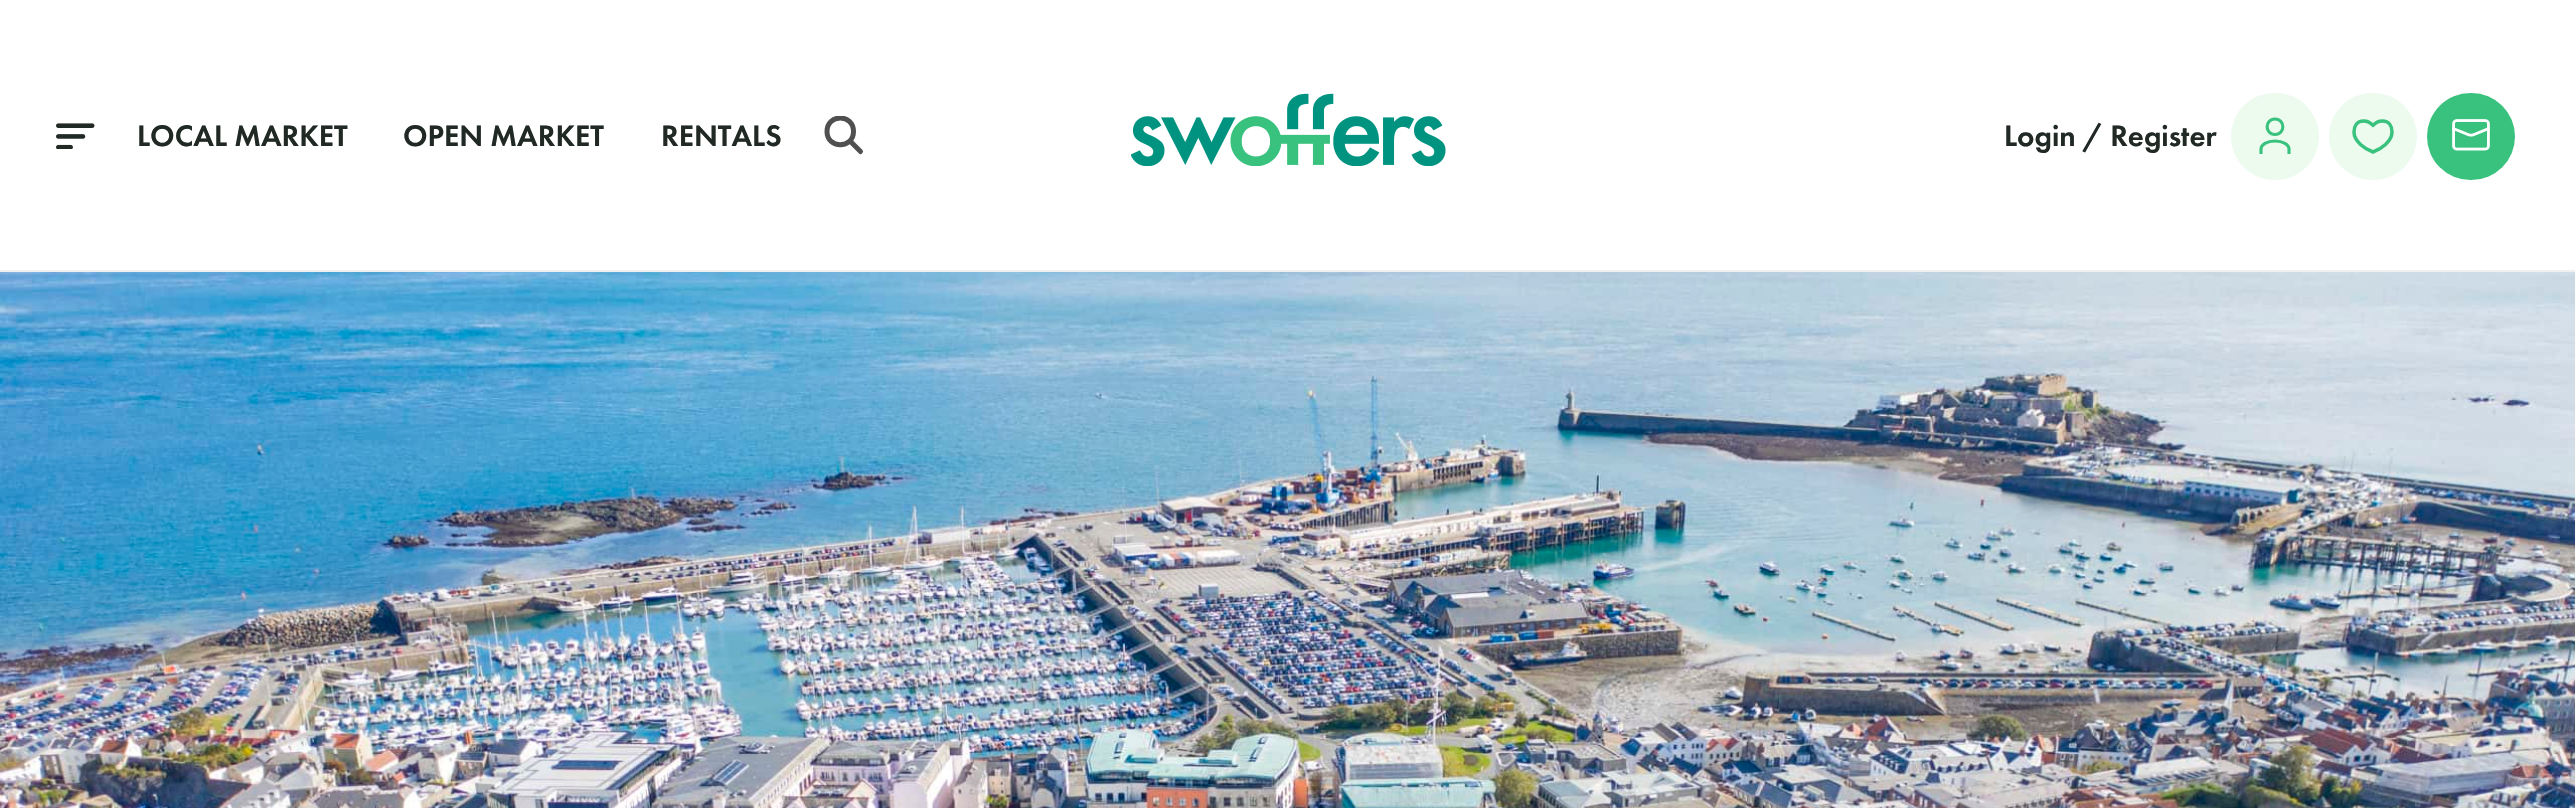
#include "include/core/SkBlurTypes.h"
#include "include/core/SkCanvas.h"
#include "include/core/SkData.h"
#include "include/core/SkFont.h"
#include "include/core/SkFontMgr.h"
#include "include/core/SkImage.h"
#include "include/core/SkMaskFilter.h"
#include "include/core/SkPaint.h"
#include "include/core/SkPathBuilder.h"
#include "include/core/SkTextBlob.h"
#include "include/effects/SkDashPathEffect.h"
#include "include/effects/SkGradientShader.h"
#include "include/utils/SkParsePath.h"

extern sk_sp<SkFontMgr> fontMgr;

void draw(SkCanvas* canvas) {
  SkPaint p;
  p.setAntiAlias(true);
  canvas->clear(SK_ColorWHITE);
  p.setColor(SkColorSetRGB(240, 240, 240));
  canvas->drawRect(SkRect::MakeLTRB(0, 270, 2575, 272), p);
  canvas->drawImageRect(SkImages::DeferredFromEncodedData(SkData::MakeFromFileName("images/1.png")), SkRect::MakeLTRB(56, 123, 95, 149), SkSamplingOptions());
  canvas->save();
  canvas->clipRect(SkRect::MakeLTRB(824, 116, 866, 158));
  p.setStyle(SkPaint::kStroke_Style);
  p.setStrokeWidth(5);
  p.setStrokeCap(SkPaint::kRound_Cap);
  p.setStrokeJoin(SkPaint::kRound_Join);
  p.setColor(SkColorSetRGB(80, 80, 80));
  canvas->drawPath(SkPathBuilder().moveTo(853.5f, 131.5f).cubicTo(853.5f, 149, 827, 149, 827, 131.5f).cubicTo(827, 113.5f, 853.5f, 113.5f, 853.5f, 131.5f).close().detach(), p);
  canvas->restore();
  canvas->drawPath(SkPathBuilder().moveTo(860.5f, 151.5f).lineTo(850.5f, 141.5f).detach(), p);
  canvas->drawImageRect(SkImages::DeferredFromEncodedData(SkData::MakeFromFileName("images/2.png")), SkRect::MakeLTRB(1131, 93, 1446, 166), SkSamplingOptions());
  p.setStyle(SkPaint::kFill_Style);
  p.setColor(SkColorSetRGB(236, 251, 237));
  canvas->drawRoundRect(SkRect::MakeLTRB(2231, 93, 2319, 180), 43.5f, 43.5f, p);
  p.setStyle(SkPaint::kStroke_Style);
  p.setStrokeWidth(3.1f);
  p.setColor(SkColorSetRGB(56, 194, 125));
  canvas->drawPath(SkPathBuilder().moveTo(2275, 134.5f).cubicTo(2285.5f, 134.5f, 2285.5f, 119, 2275, 119).cubicTo(2264.5f, 119, 2264.5f, 134.5f, 2275, 134.5f).close().detach(), p);
  canvas->save();
  canvas->clipRect(SkRect::MakeLTRB(2259, 117, 2291, 154));
  canvas->drawPath(SkPathBuilder().moveTo(2289, 153.5f).lineTo(2289, 149).cubicTo(2289, 144.5f, 2283, 141, 2275, 141).cubicTo(2267, 141, 2261, 144.5f, 2261, 149).lineTo(2261, 153.5f).detach(), p);
  canvas->restore();
  p.setStyle(SkPaint::kFill_Style);
  p.setColor(SkColorSetRGB(236, 251, 237));
  canvas->drawRoundRect(SkRect::MakeLTRB(2329, 93, 2417, 180), 43.5f, 43.5f, p);
  p.setStyle(SkPaint::kStroke_Style);
  p.setStrokeWidth(3.5f);
  p.setColor(SkColorSetRGB(56, 194, 125));
  canvas->drawPath(SkPathBuilder().moveTo(2382.5f, 121).cubicTo(2379, 121, 2375.5f, 122.5f, 2373, 125.5f).cubicTo(2370.5f, 122.5f, 2367, 121, 2363.5f, 121).cubicTo(2357, 121, 2354, 126, 2354, 132).cubicTo(2354, 141.5f, 2365, 149, 2373, 152).cubicTo(2381, 149, 2392, 141.5f, 2392, 132).cubicTo(2392, 126, 2389, 121, 2382.5f, 121).close().detach(), p);
  p.setStyle(SkPaint::kFill_Style);
  canvas->drawRoundRect(SkRect::MakeLTRB(2427, 93, 2515, 180), 43.5f, 43.5f, p);
  canvas->drawImageRect(SkImages::DeferredFromEncodedData(SkData::MakeFromFileName("images/3.png")), SkRect::MakeLTRB(2452, 119, 2490, 151), SkSamplingOptions());
  canvas->drawImageRect(SkImages::DeferredFromEncodedData(SkData::MakeFromFileName("images/4.png")), SkRect::MakeLTRB(0, 272, 2575, 808), SkSamplingOptions());
  SkFont font1(fontMgr->matchFamilyStyle("Futura PT", SkFontStyle(500, SkFontStyle::kNormal_Width, SkFontStyle::kUpright_Slant)), 30.75f);
  font1.setSubpixel(true);
  p.setColor(SkColorSetRGB(33, 41, 36));
  canvas->drawString("LOCAL MARKET", 137, 146, font1, p);
  canvas->drawString("OPEN MARKET", 403, 146, font1, p);
  canvas->drawString("RENTALS", 661, 146, font1, p);
  canvas->drawString("Login / Register", 2004, 146, font1, p);
}
